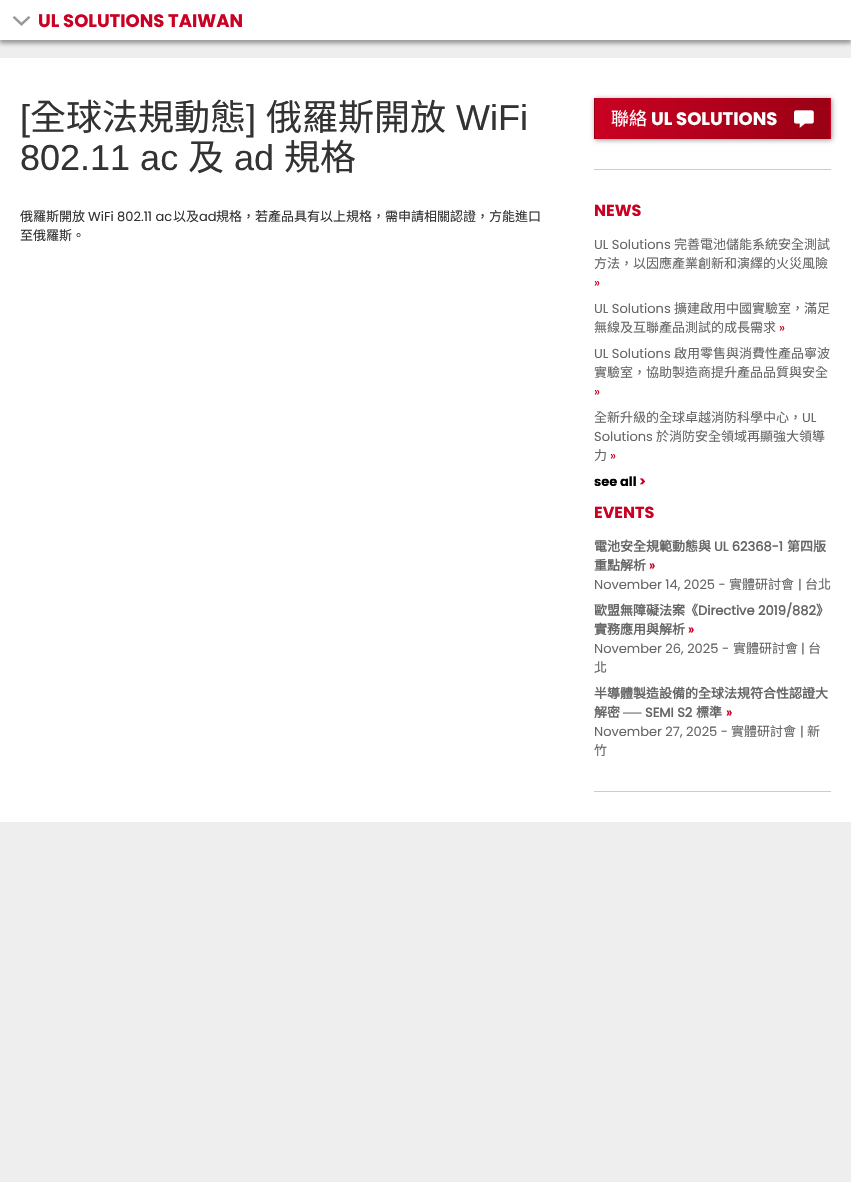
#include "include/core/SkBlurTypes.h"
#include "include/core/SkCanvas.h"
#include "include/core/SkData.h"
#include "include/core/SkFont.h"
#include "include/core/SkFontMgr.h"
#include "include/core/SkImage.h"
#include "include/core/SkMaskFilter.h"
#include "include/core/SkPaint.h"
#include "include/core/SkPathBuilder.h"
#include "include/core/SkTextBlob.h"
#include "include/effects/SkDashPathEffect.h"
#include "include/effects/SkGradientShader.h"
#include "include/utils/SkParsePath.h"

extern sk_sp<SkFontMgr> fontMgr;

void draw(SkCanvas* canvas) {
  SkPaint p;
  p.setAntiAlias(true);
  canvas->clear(SkColorSetRGB(238, 238, 238));
  p.setColor(SkColorSetRGB(153, 153, 153));
  p.setMaskFilter(SkMaskFilter::MakeBlur(kNormal_SkBlurStyle, 2.5f));
  canvas->drawRect(SkRect::MakeLTRB(0, 2, 851, 42), p);
  p.setMaskFilter(nullptr);
  p.setColor(SK_ColorWHITE);
  canvas->drawRect(SkRect::MakeLTRB(0, 0, 851, 40), p);
  canvas->save();
  canvas->clipRect(SkRect::MakeLTRB(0, 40, 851, 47));
  p.setColor(SkColorSetRGB(153, 153, 153));
  p.setMaskFilter(SkMaskFilter::MakeBlur(kNormal_SkBlurStyle, 2.5f));
  canvas->drawRect(SkRect::MakeLTRB(0, 2, 851, 42), p);
  p.setMaskFilter(nullptr);
  canvas->restore();
  canvas->drawPath(SkPathBuilder().moveTo(12.5f, 17.5f).lineTo(14.5f, 16).lineTo(21.5f, 22.5f).lineTo(28.5f, 16).lineTo(30.5f, 17.5f).lineTo(21.5f, 26).close().detach(), p);
  p.setColor(SK_ColorWHITE);
  canvas->drawRect(SkRect::MakeLTRB(0, 58, 851, 822), p);
  p.setColor(SkColorSetRGB(153, 153, 153));
  p.setMaskFilter(SkMaskFilter::MakeBlur(kNormal_SkBlurStyle, 2.5f));
  canvas->drawRect(SkRect::MakeLTRB(595, 99, 832, 140), p);
  p.setMaskFilter(nullptr);
  {
    const SkColor colors[] = {SkColorSetRGB(202, 1, 35), SkColorSetRGB(154, 0, 21)};
    const float stops[] = {0, 1};
    const SkPoint ends[] = {{360, 119}, {595, 118}};
    p.setShader(SkGradientShader::MakeLinear(ends, colors, stops, 2, SkTileMode::kClamp));
    p.setAlpha(255);
  }
  canvas->drawRect(SkRect::MakeLTRB(594, 98, 595, 139), p);
  {
    const SkColor colors[] = {SkColorSetRGB(202, 1, 35), SkColorSetRGB(154, 0, 21)};
    const float stops[] = {0, 1};
    const SkPoint ends[] = {{595, 119}, {830, 118}};
    p.setShader(SkGradientShader::MakeLinear(ends, colors, stops, 2, SkTileMode::kClamp));
    p.setAlpha(255);
  }
  canvas->drawRect(SkRect::MakeLTRB(595, 98, 830, 139), p);
  {
    const SkColor colors[] = {SkColorSetRGB(202, 1, 35), SkColorSetRGB(154, 0, 21)};
    const float stops[] = {0, 1};
    const SkPoint ends[] = {{830, 119}, {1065, 118}};
    p.setShader(SkGradientShader::MakeLinear(ends, colors, stops, 2, SkTileMode::kClamp));
    p.setAlpha(255);
  }
  canvas->drawRect(SkRect::MakeLTRB(830, 98, 831, 139), p);
  canvas->drawImageRect(SkImages::DeferredFromEncodedData(SkData::MakeFromFileName("images/1.png")), SkRect::MakeLTRB(794, 110, 814, 128), SkSamplingOptions());
  p.setShader(nullptr);
  p.setColor(SkColorSetRGB(204, 204, 204));
  canvas->drawRect(SkRect::MakeLTRB(594, 169, 831, 170), p);
  canvas->drawRect(SkRect::MakeLTRB(594, 791, 831, 792), p);
  SkFont font1(fontMgr->matchFamilyStyle("Poppins", SkFontStyle::Bold()), 18);
  font1.setSubpixel(true);
  p.setColor(SkColorSetRGB(202, 1, 35));
  canvas->drawString("UL SOLUTIONS TAIWAN", 38, 27, font1, p);
  SkFont font2(fontMgr->matchFamilyStyle("Liberation Sans", SkFontStyle::Normal()), 36);
  font2.setSubpixel(true);
  p.setColor(SkColorSetRGB(51, 51, 51));
  canvas->drawString("[", 20, 130, font2, p);
  SkFont font3(fontMgr->matchFamilyStyle("Noto Sans CJK TC", SkFontStyle::Normal()), 36);
  font3.setSubpixel(true);
  canvas->drawString("全球法規動態", 30, 130, font3, p);
  canvas->drawString("]", 246, 130, font2, p);
  canvas->drawString("俄羅斯開放", 266, 130, font3, p);
  canvas->drawString("WiFi", 456, 130, font2, p);
  canvas->drawString("802.11 ac", 20, 170, font2, p);
  canvas->drawString("及", 188, 170, font3, p);
  canvas->drawString("ad", 234, 170, font2, p);
  canvas->drawString("規格", 284, 170, font3, p);
  SkFont font4(fontMgr->matchFamilyStyle("Noto Sans CJK TC", SkFontStyle::Normal()), 13);
  font4.setSubpixel(true);
  canvas->drawString("俄羅斯開放", 20, 221, font4, p);
  SkFont font5(fontMgr->matchFamilyStyle("Poppins", SkFontStyle::Normal()), 13);
  font5.setSubpixel(true);
  canvas->drawString("WiFi 802.11 ac", 88, 221, font5, p);
  canvas->drawString("以及", 173, 221, font4, p);
  canvas->drawString("ad", 199, 221, font5, p);
  canvas->drawString("規格，若產品具有以上規格，需申請相關認證，方能進口", 216, 221, font4, p);
  canvas->drawString("至俄羅斯。", 20, 240, font4, p);
  SkFont font6(fontMgr->matchFamilyStyle("Noto Sans CJK TC", SkFontStyle::Normal()), 18);
  font6.setSubpixel(true);
  p.setColor(SK_ColorWHITE);
  canvas->drawString("聯絡", 611, 125, font6, p);
  canvas->drawString("UL SOLUTIONS", 651, 125, font1, p);
  SkFont font7(fontMgr->matchFamilyStyle("Poppins", SkFontStyle::Bold()), 16);
  font7.setSubpixel(true);
  p.setColor(SkColorSetRGB(202, 1, 35));
  canvas->drawString("NEWS", 594, 216, font7, p);
  p.setColor(SkColorSetRGB(102, 102, 102));
  canvas->drawString("UL Solutions", 594, 249, font5, p);
  canvas->drawString("完善電池儲能系統安全測試", 674, 249, font4, p);
  canvas->drawString("方法，以因應產業創新和演繹的火災風險", 594, 268, font4, p);
  p.setColor(SkColorSetRGB(202, 1, 35));
  canvas->drawString("»", 594, 287, font5, p);
  p.setColor(SkColorSetRGB(102, 102, 102));
  canvas->drawString("UL Solutions", 594, 313, font5, p);
  canvas->drawString("擴建啟用中國實驗室，滿足", 674, 313, font4, p);
  canvas->drawString("無線及互聯產品測試的成長需求", 594, 332, font4, p);
  p.setColor(SkColorSetRGB(202, 1, 35));
  canvas->drawString("»", 779, 332, font5, p);
  p.setColor(SkColorSetRGB(102, 102, 102));
  canvas->drawString("UL Solutions", 594, 358, font5, p);
  canvas->drawString("啟用零售與消費性產品寧波", 674, 358, font4, p);
  canvas->drawString("實驗室，協助製造商提升產品品質與安全", 594, 377, font4, p);
  p.setColor(SkColorSetRGB(202, 1, 35));
  canvas->drawString("»", 594, 396, font5, p);
  p.setColor(SkColorSetRGB(102, 102, 102));
  canvas->drawString("全新升級的全球卓越消防科學中心，", 594, 422, font4, p);
  canvas->drawString("UL", 802, 422, font5, p);
  canvas->drawString("Solutions", 594, 441, font5, p);
  canvas->drawString("於消防安全領域再顯強大領導", 656, 441, font4, p);
  canvas->drawString("力", 594, 460, font4, p);
  p.setColor(SkColorSetRGB(202, 1, 35));
  canvas->drawString("»", 610, 460, font5, p);
  SkFont font8(fontMgr->matchFamilyStyle("Poppins", SkFontStyle::Bold()), 13);
  font8.setSubpixel(true);
  p.setColor(SK_ColorBLACK);
  canvas->drawString("see all", 594, 486, font8, p);
  p.setColor(SkColorSetRGB(202, 1, 35));
  canvas->drawString(">", 639, 486, font8, p);
  canvas->drawString("EVENTS", 594, 518, font7, p);
  SkFont font9(fontMgr->matchFamilyStyle("Noto Sans CJK TC", SkFontStyle::Bold()), 13);
  font9.setSubpixel(true);
  p.setColor(SkColorSetRGB(102, 102, 102));
  canvas->drawString("電池安全規範動態與", 594, 551, font9, p);
  SkFont font10(fontMgr->matchFamilyStyle("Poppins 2", SkFontStyle::Bold()), 13);
  font10.setSubpixel(true);
  canvas->drawString("UL 62368-1", 714, 551, font10, p);
  canvas->drawString("第四版", 787, 551, font9, p);
  canvas->drawString("重點解析", 594, 570, font9, p);
  p.setColor(SkColorSetRGB(202, 1, 35));
  canvas->drawString("»", 649, 570, font10, p);
  p.setColor(SkColorSetRGB(102, 102, 102));
  canvas->drawString("November 14, 2025 -", 594, 589, font5, p);
  canvas->drawString("實體研討會", 729, 589, font4, p);
  canvas->drawString("|", 798, 589, font5, p);
  canvas->drawString("台北", 805, 589, font4, p);
  canvas->drawString("歐盟無障礙法案《", 594, 615, font9, p);
  canvas->drawString("Directive 2019/882", 698, 615, font10, p);
  canvas->drawString("》", 816, 615, font9, p);
  canvas->drawString("實務應用與解析", 594, 634, font9, p);
  p.setColor(SkColorSetRGB(202, 1, 35));
  canvas->drawString("»", 688, 634, font10, p);
  p.setColor(SkColorSetRGB(102, 102, 102));
  canvas->drawString("November 26, 2025 -", 594, 653, font5, p);
  canvas->drawString("實體研討會", 733, 653, font4, p);
  canvas->drawString("|", 801, 653, font5, p);
  canvas->drawString("台", 808, 653, font4, p);
  canvas->drawString("北", 594, 672, font4, p);
  canvas->drawString("半導體製造設備的全球法規符合性認證大", 594, 698, font9, p);
  canvas->drawString("解密", 594, 717, font9, p);
  SkFont font11(fontMgr->matchFamilyStyle("Liberation Sans", SkFontStyle::Bold()), 13);
  font11.setSubpixel(true);
  canvas->drawString("──", 623, 717, font11, p);
  canvas->drawString("SEMI S2", 645, 717, font10, p);
  canvas->drawString("標準", 696, 717, font9, p);
  p.setColor(SkColorSetRGB(202, 1, 35));
  canvas->drawString("»", 726, 717, font10, p);
  p.setColor(SkColorSetRGB(102, 102, 102));
  canvas->drawString("November 27, 2025 -", 594, 736, font5, p);
  canvas->drawString("實體研討會", 731, 736, font4, p);
  canvas->drawString("|", 800, 736, font5, p);
  canvas->drawString("新", 807, 736, font4, p);
  canvas->drawString("竹", 594, 755, font4, p);
}
